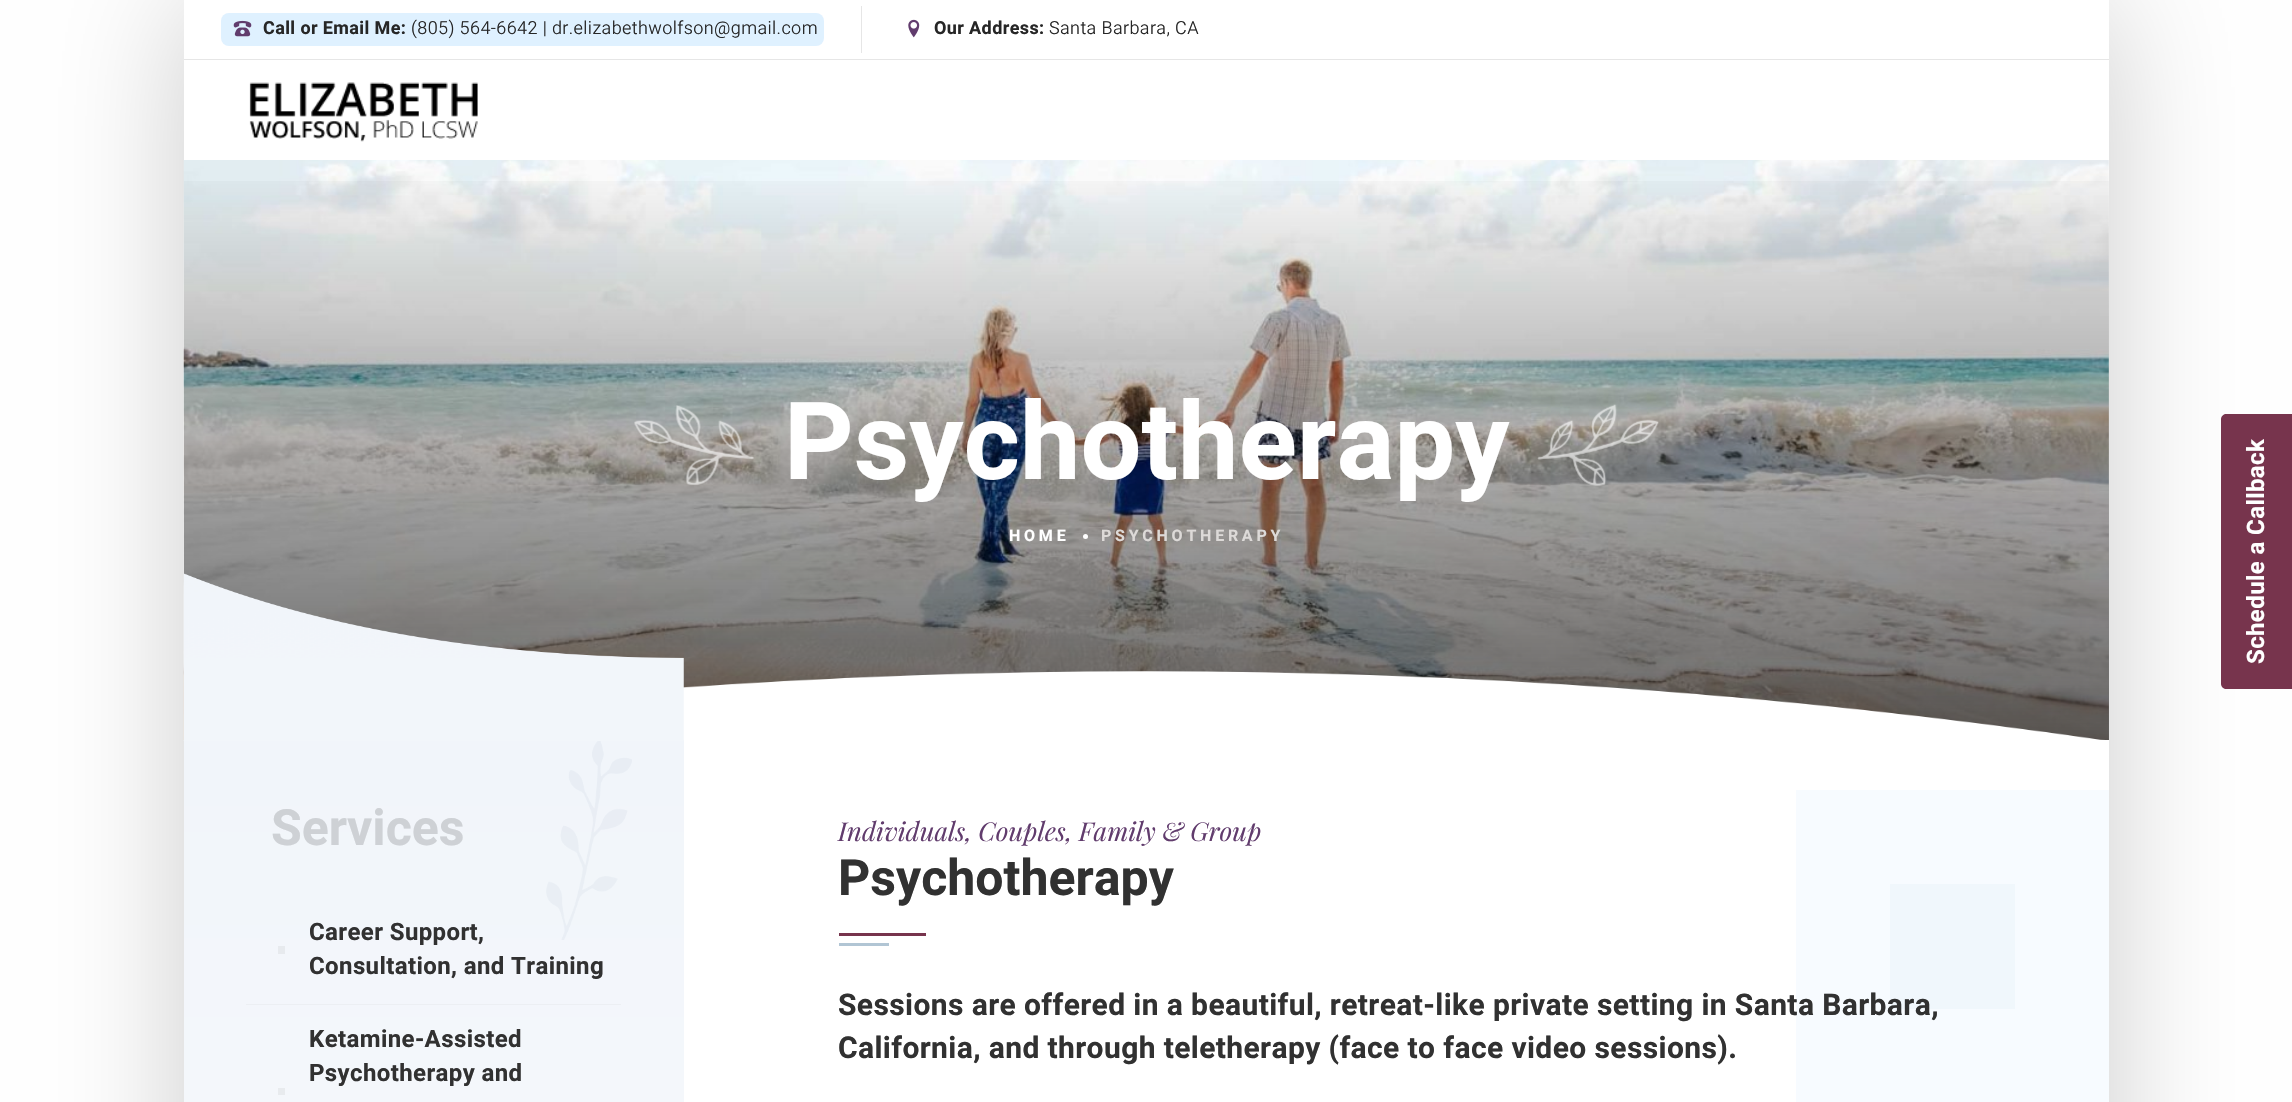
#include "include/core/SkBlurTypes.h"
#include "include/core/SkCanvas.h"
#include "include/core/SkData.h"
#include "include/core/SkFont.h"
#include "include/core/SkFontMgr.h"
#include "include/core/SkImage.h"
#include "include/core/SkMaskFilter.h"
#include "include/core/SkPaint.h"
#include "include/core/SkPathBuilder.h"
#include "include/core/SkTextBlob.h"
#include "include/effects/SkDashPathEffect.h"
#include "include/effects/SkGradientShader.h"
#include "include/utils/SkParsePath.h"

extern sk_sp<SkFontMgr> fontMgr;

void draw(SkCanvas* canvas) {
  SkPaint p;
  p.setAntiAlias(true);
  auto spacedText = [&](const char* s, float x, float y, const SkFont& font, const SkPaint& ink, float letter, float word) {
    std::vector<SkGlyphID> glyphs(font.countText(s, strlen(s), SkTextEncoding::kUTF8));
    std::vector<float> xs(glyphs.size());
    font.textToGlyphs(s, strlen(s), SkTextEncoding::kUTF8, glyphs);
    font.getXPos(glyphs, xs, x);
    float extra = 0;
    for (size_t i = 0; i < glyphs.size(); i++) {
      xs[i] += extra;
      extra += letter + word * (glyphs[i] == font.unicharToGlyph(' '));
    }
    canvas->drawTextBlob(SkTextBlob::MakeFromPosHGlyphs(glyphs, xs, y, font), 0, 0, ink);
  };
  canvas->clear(SK_ColorWHITE);
  p.setColor(SkColorSetARGB(51, 0, 0, 0));
  p.setMaskFilter(SkMaskFilter::MakeBlur(kNormal_SkBlurStyle, 62.5f));
  canvas->drawRect(SkRect::MakeLTRB(184, 0, 2109, 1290), p);
  p.setMaskFilter(nullptr);
  p.setColor(SK_ColorWHITE);
  canvas->drawRect(SkRect::MakeLTRB(184, 0, 2109, 1102), p);
  p.setColor(SkColorSetRGB(230, 230, 230));
  canvas->drawRect(SkRect::MakeLTRB(184, 59, 2109, 60), p);
  canvas->drawRect(SkRect::MakeLTRB(861, 6, 862, 53), p);
  p.setColor(SkColorSetRGB(223, 241, 255));
  canvas->drawRoundRect(SkRect::MakeLTRB(221, 13, 824, 46), 8, 8, p);
  canvas->drawImageRect(SkImages::DeferredFromEncodedData(SkData::MakeFromFileName("images/1.png")), SkRect::MakeLTRB(233, 20, 252, 37), SkSamplingOptions());
  canvas->drawImageRect(SkImages::DeferredFromEncodedData(SkData::MakeFromFileName("images/2.png")), SkRect::MakeLTRB(908, 19, 920, 38), SkSamplingOptions());
  canvas->drawImageRect(SkImages::DeferredFromEncodedData(SkData::MakeFromFileName("images/3.png")), SkRect::MakeLTRB(249, 82, 478, 142), SkSamplingOptions());
  canvas->drawImageRect(SkImages::DeferredFromEncodedData(SkData::MakeFromFileName("images/4.png")), SkRect::MakeLTRB(183, 160, 2109, 740), SkSamplingOptions());
  {
    const SkColor colors[] = {SkColorSetARGB(0, 0, 0, 0), SkColorSetARGB(77, 0, 0, 0), SkColorSetARGB(153, 0, 0, 0)};
    const float stops[] = {0, 0.5f, 1};
    const SkPoint ends[] = {{1146, 160}, {1146, 740}};
    p.setShader(SkGradientShader::MakeLinear(ends, colors, stops, 3, SkTileMode::kClamp));
    p.setAlpha(255);
  }
  canvas->drawRect(SkRect::MakeLTRB(184, 181, 2109, 740), p);
  canvas->drawImageRect(SkImages::DeferredFromEncodedData(SkData::MakeFromFileName("images/5.png")), SkRect::MakeLTRB(634, 405, 754, 485), SkSamplingOptions());
  canvas->drawImageRect(SkImages::DeferredFromEncodedData(SkData::MakeFromFileName("images/6.png")), SkRect::MakeLTRB(1537, 404, 1659, 486), SkSamplingOptions());
  p.setShader(nullptr);
  p.setColor(SK_ColorWHITE);
  canvas->drawCircle(1085.5f, 536.5f, 2.5f, p);
  canvas->drawImageRect(SkImages::DeferredFromEncodedData(SkData::MakeFromFileName("images/7.png")), SkRect::MakeLTRB(683, 671, 2105, 740), SkSamplingOptions());
  p.setColor(SkColorSetRGB(119, 52, 77));
  canvas->drawPath(SkPathBuilder().moveTo(2221, 684).lineTo(2221, 419).cubicTo(2221, 416, 2224, 414, 2226, 414).lineTo(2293, 414).lineTo(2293, 689).lineTo(2226, 689).cubicTo(2224, 689, 2221, 687, 2221, 684).close().detach(), p);
  {
    const SkColor colors[] = {SkColorSetRGB(241, 245, 250), SK_ColorWHITE};
    const float stops[] = {0, 1};
    const SkPoint ends[] = {{434, 740}, {434, 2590}};
    p.setShader(SkGradientShader::MakeLinear(ends, colors, stops, 2, SkTileMode::kClamp));
    p.setAlpha(255);
  }
  canvas->drawRect(SkRect::MakeLTRB(184, 740, 684, 1102), p);
  canvas->drawImageRect(SkImages::DeferredFromEncodedData(SkData::MakeFromFileName("images/8.png")), SkRect::MakeLTRB(183, 573, 684, 741), SkSamplingOptions());
  canvas->drawImageRect(SkImages::DeferredFromEncodedData(SkData::MakeFromFileName("images/9.png")), SkRect::MakeLTRB(546, 741, 632, 940), SkSamplingOptions());
  p.setShader(nullptr);
  p.setColor(SkColorSetRGB(236, 239, 243));
  canvas->drawRect(SkRect::MakeLTRB(246, 1004, 621, 1005), p);
  p.setColor(SkColorSetRGB(231, 234, 238));
  canvas->drawRect(SkRect::MakeLTRB(278, 946, 285, 954), p);
  p.setColor(SkColorSetRGB(232, 235, 238));
  canvas->drawRect(SkRect::MakeLTRB(278, 1088, 285, 1095), p);
  p.setColor(SkColorSetRGB(119, 52, 77));
  canvas->drawRect(SkRect::MakeLTRB(839, 933, 926, 936), p);
  p.setColor(SkColorSetRGB(177, 197, 212));
  canvas->drawRect(SkRect::MakeLTRB(839, 943, 889, 946), p);
  p.setColor(SkColorSetRGB(247, 251, 255));
  canvas->drawRect(SkRect::MakeLTRB(1796, 790, 2109, 1102), p);
  p.setColor(SkColorSetRGB(240, 247, 252));
  canvas->drawRect(SkRect::MakeLTRB(1890, 884, 2015, 1009), p);
  SkFont font1(fontMgr->matchFamilyStyle("Heebo", SkFontStyle::Bold()), 18);
  font1.setSubpixel(true);
  p.setColor(SkColorSetRGB(38, 38, 38));
  spacedText("Call or Email Me:", 263, 34, font1, p, 0.38f, 0);
  SkFont font2(fontMgr->matchFamilyStyle("Heebo", SkFontStyle(300, SkFontStyle::kNormal_Width, SkFontStyle::kUpright_Slant)), 18);
  font2.setSubpixel(true);
  spacedText("(805) 564-6642 | dr.elizabethwolfson@gmail.com", 411, 34, font2, p, 0.38f, 0);
  spacedText("Our Address:", 934, 34, font1, p, 0.38f, 0);
  spacedText("Santa Barbara, CA", 1049, 34, font2, p, 0.38f, 0);
  SkFont font3(fontMgr->matchFamilyStyle("Heebo", SkFontStyle::Bold()), 108);
  font3.setSubpixel(true);
  p.setColor(SK_ColorWHITE);
  canvas->drawString("Psychotherapy", 784, 479, font3, p);
  SkFont font4(fontMgr->matchFamilyStyle("Heebo", SkFontStyle::Bold()), 16);
  font4.setSubpixel(true);
  spacedText("HOME", 1009, 541, font4, p, 3.75f, 0);
  p.setColor(SkColorSetRGB(221, 218, 216));
  spacedText("PSYCHOTHERAPY", 1101, 541, font4, p, 3.75f, 0);
  SkFont font5(fontMgr->matchFamilyStyle("Heebo", SkFontStyle::Bold()), 24);
  font5.setSubpixel(true);
  p.setColor(SK_ColorWHITE);
  canvas->save();
  canvas->rotate(-90, 2264, 664);
  spacedText("Schedule a Callback", 2264, 664, font5, p, 0.38f, 0);
  canvas->restore();
  SkFont font6(fontMgr->matchFamilyStyle("Heebo", SkFontStyle::Bold()), 50);
  font6.setSubpixel(true);
  p.setColor(SkColorSetRGB(206, 209, 213));
  canvas->drawString("Services", 271, 845, font6, p);
  p.setColor(SkColorSetRGB(49, 49, 49));
  spacedText("Career Support,", 309, 940, font5, p, 0.38f, 0);
  spacedText("Consultation, and Training", 309, 974, font5, p, 0.38f, 0);
  spacedText("Ketamine-Assisted", 309, 1047, font5, p, 0.38f, 0);
  spacedText("Psychotherapy and", 309, 1081, font5, p, 0.38f, 0);
  SkFont font7(fontMgr->matchFamilyStyle("Playfair Display", SkFontStyle::Italic()), 26);
  font7.setSubpixel(true);
  p.setColor(SkColorSetRGB(97, 60, 109));
  canvas->drawString("Individuals, Couples, Family & Group", 838, 841, font7, p);
  p.setColor(SkColorSetRGB(49, 49, 49));
  canvas->drawString("Psychotherapy", 838, 895, font6, p);
  SkFont font8(fontMgr->matchFamilyStyle("Heebo", SkFontStyle::Bold()), 30);
  font8.setSubpixel(true);
  spacedText("Sessions are offered in a beautiful, retreat-like private setting in Santa Barbara,", 838, 1015, font8, p, 0.38f, 0);
  spacedText("California, and through teletherapy (face to face video sessions).", 838, 1058, font8, p, 0.38f, 0);
}
